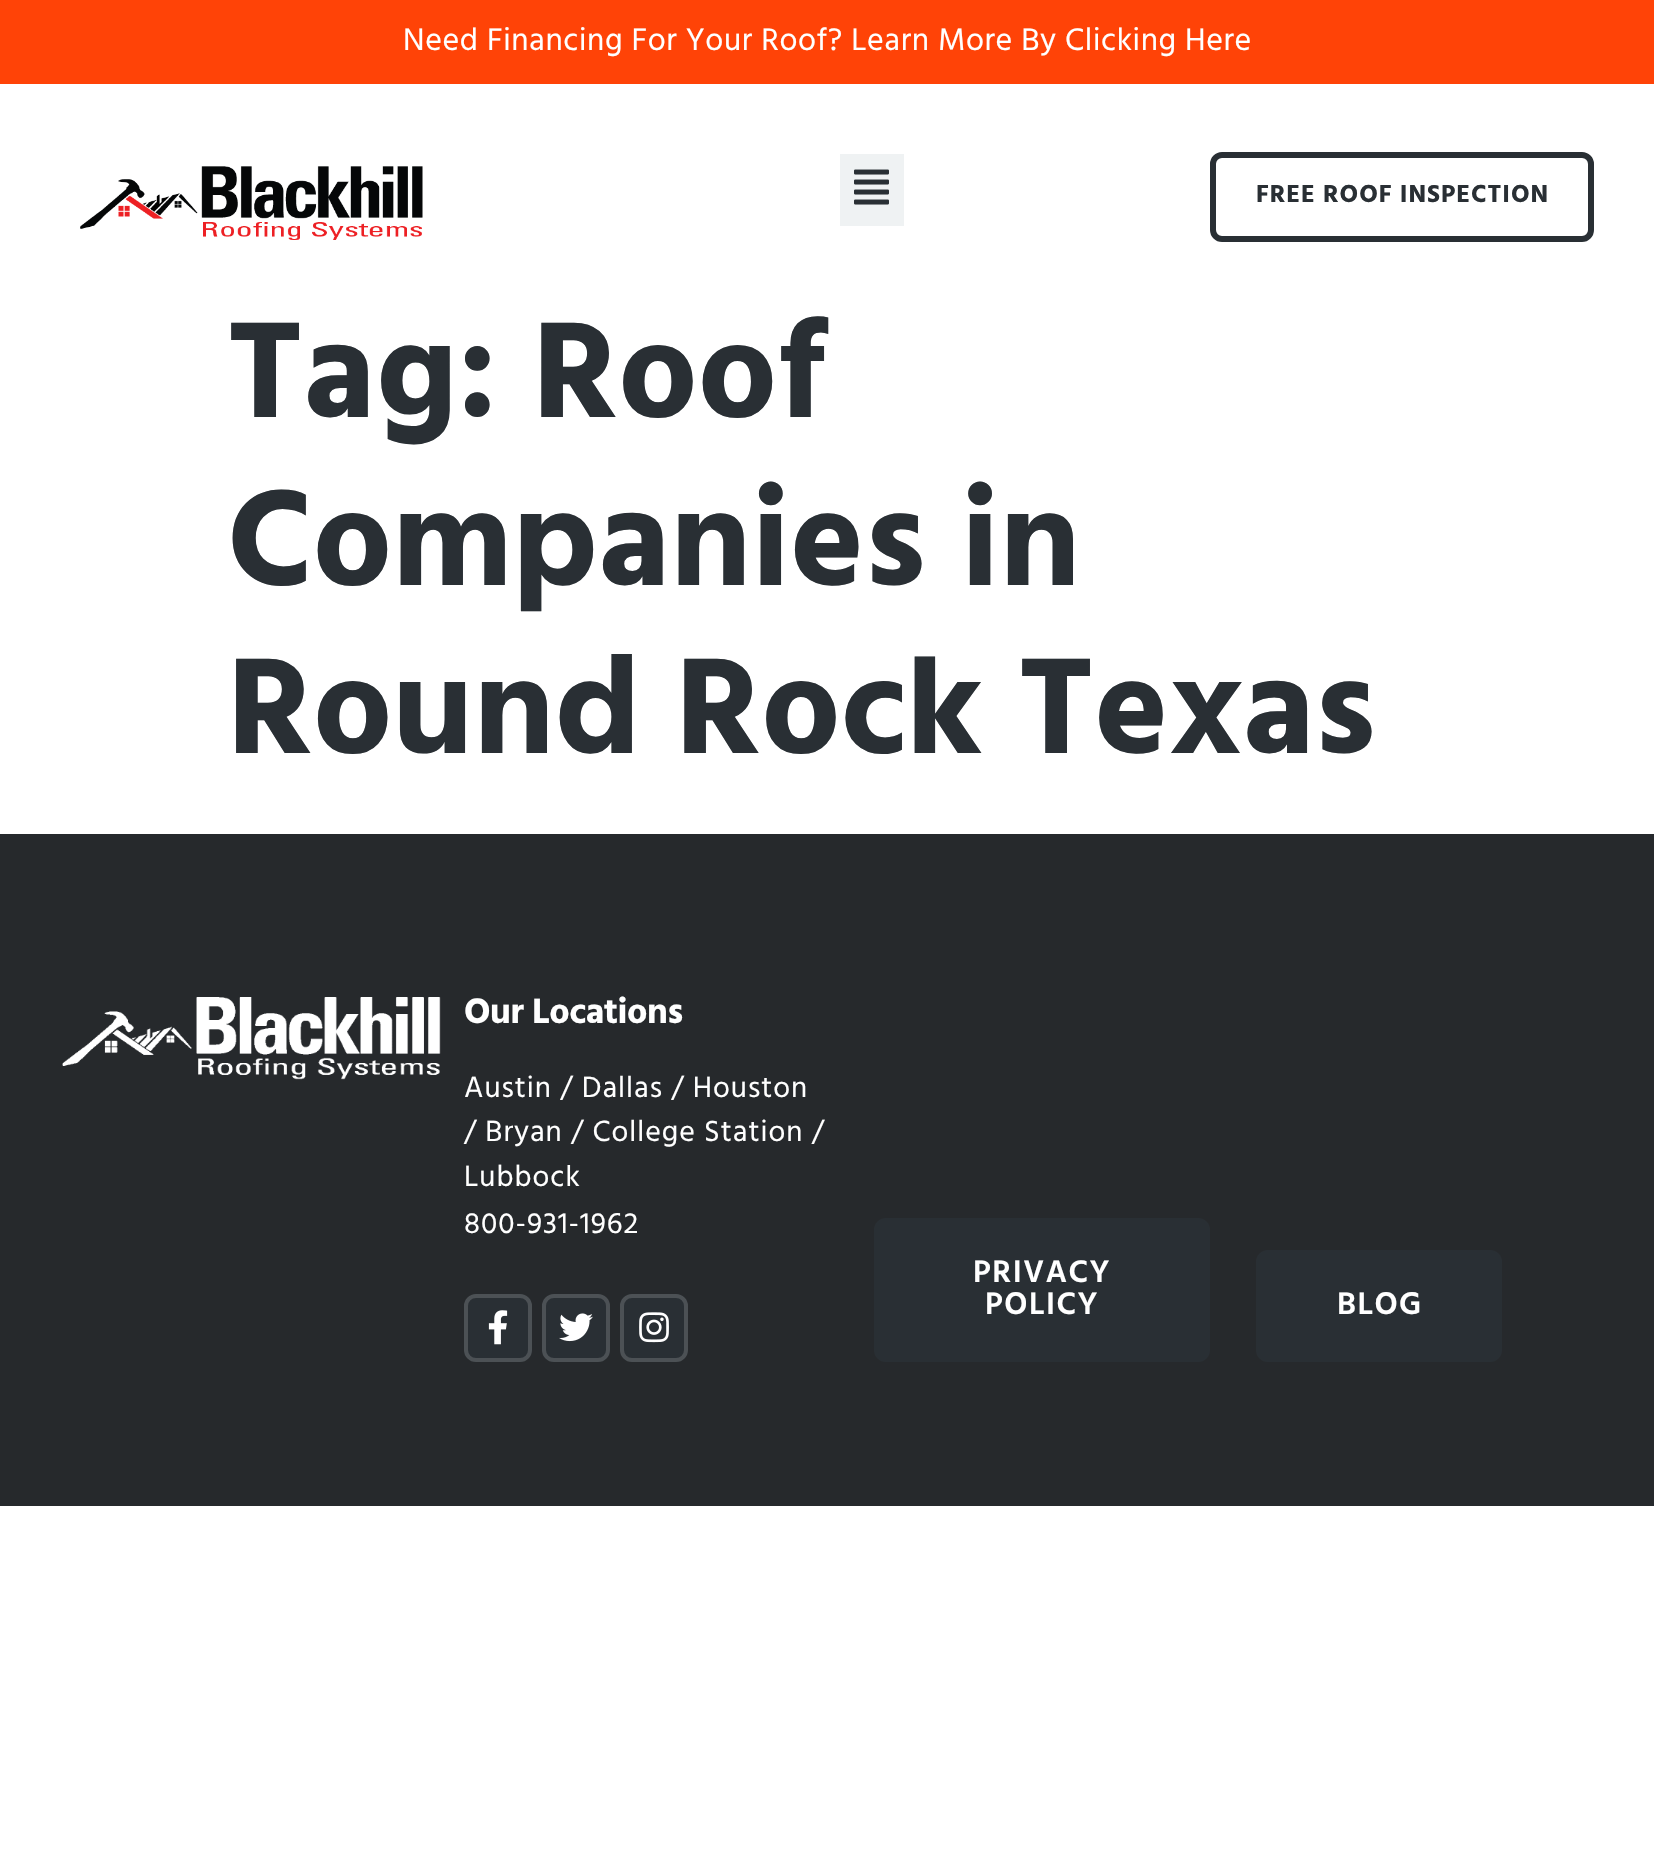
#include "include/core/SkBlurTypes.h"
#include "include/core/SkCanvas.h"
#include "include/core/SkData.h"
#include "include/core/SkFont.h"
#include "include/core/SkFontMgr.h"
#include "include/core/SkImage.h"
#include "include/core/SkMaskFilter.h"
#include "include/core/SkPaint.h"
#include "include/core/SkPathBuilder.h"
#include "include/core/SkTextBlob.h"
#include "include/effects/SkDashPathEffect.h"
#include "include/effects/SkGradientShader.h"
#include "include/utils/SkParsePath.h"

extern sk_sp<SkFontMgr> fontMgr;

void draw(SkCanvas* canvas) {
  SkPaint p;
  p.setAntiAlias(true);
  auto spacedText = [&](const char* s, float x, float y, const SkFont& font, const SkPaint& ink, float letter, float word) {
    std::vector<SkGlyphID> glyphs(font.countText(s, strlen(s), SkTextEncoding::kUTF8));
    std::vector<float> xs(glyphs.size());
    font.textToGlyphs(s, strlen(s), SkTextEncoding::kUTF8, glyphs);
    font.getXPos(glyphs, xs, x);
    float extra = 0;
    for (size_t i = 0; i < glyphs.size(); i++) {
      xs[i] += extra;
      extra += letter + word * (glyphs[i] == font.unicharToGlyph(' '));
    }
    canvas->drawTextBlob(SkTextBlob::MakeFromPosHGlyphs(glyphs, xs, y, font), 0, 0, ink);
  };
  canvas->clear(SK_ColorWHITE);
  p.setColor(SkColorSetRGB(255, 67, 7));
  canvas->drawRect(SkRect::MakeLTRB(0, 0, 1654, 84), p);
  canvas->drawImageRect(SkImages::DeferredFromEncodedData(SkData::MakeFromFileName("images/1.png")), SkRect::MakeLTRB(80, 166, 423, 240), SkSamplingOptions());
  p.setColor(SkColorSetRGB(239, 242, 243));
  canvas->drawRect(SkRect::MakeLTRB(840, 154, 904, 226), p);
  canvas->drawImageRect(SkImages::DeferredFromEncodedData(SkData::MakeFromFileName("images/2.png")), SkRect::MakeLTRB(854, 169, 889, 205), SkSamplingOptions());
  p.setStyle(SkPaint::kStroke_Style);
  p.setStrokeWidth(6);
  p.setColor(SkColorSetRGB(41, 47, 52));
  canvas->drawRoundRect(SkRect::MakeLTRB(1213, 155, 1591, 239), 9, 9, p);
  p.setStyle(SkPaint::kFill_Style);
  p.setColor(SkColorSetRGB(38, 41, 44));
  canvas->drawRect(SkRect::MakeLTRB(0, 834, 1654, 1506), p);
  canvas->drawImageRect(SkImages::DeferredFromEncodedData(SkData::MakeFromFileName("images/3.png")), SkRect::MakeLTRB(62, 997, 441, 1080), SkSamplingOptions());
  p.setColor(SkColorSetRGB(41, 47, 52));
  canvas->drawRoundRect(SkRect::MakeLTRB(464, 1294, 532, 1362), 12, 12, p);
  p.setStyle(SkPaint::kStroke_Style);
  p.setStrokeWidth(4);
  p.setColor(SkColorSetARGB(41, 255, 255, 255));
  canvas->drawRoundRect(SkRect::MakeLTRB(466, 1296, 530, 1360), 10, 10, p);
  canvas->drawImageRect(SkImages::DeferredFromEncodedData(SkData::MakeFromFileName("images/4.png")), SkRect::MakeLTRB(488, 1310, 508, 1345), SkSamplingOptions());
  p.setStyle(SkPaint::kFill_Style);
  p.setColor(SkColorSetRGB(41, 47, 52));
  canvas->drawRoundRect(SkRect::MakeLTRB(542, 1294, 610, 1362), 12, 12, p);
  p.setStyle(SkPaint::kStroke_Style);
  p.setColor(SkColorSetARGB(41, 255, 255, 255));
  canvas->drawRoundRect(SkRect::MakeLTRB(544, 1296, 608, 1360), 10, 10, p);
  canvas->drawImageRect(SkImages::DeferredFromEncodedData(SkData::MakeFromFileName("images/5.png")), SkRect::MakeLTRB(559, 1313, 593, 1342), SkSamplingOptions());
  p.setStyle(SkPaint::kFill_Style);
  p.setColor(SkColorSetRGB(41, 47, 52));
  canvas->drawRoundRect(SkRect::MakeLTRB(620, 1294, 688, 1362), 12, 12, p);
  p.setStyle(SkPaint::kStroke_Style);
  p.setColor(SkColorSetARGB(41, 255, 255, 255));
  canvas->drawRoundRect(SkRect::MakeLTRB(622, 1296, 686, 1360), 10, 10, p);
  canvas->drawImageRect(SkImages::DeferredFromEncodedData(SkData::MakeFromFileName("images/6.png")), SkRect::MakeLTRB(639, 1312, 669, 1343), SkSamplingOptions());
  p.setStyle(SkPaint::kFill_Style);
  p.setColor(SkColorSetRGB(41, 47, 52));
  canvas->drawRoundRect(SkRect::MakeLTRB(874, 1218, 1210, 1362), 12, 12, p);
  canvas->drawRoundRect(SkRect::MakeLTRB(1256, 1250, 1502, 1362), 12, 12, p);
  SkFont font1(fontMgr->matchFamilyStyle("Hind", SkFontStyle::Normal()), 32);
  font1.setSubpixel(true);
  p.setColor(SK_ColorWHITE);
  spacedText("Need Financing For Your Roof? Learn More By Clicking Here", 403, 50, font1, p, 0.6f, 0);
  SkFont font2(fontMgr->matchFamilyStyle("Hind", SkFontStyle::Bold()), 25.25f);
  font2.setSubpixel(true);
  p.setColor(SkColorSetRGB(41, 47, 52));
  spacedText("FREE ROOF INSPECTION", 1256, 202, font2, p, 1, 0);
  SkFont font3(fontMgr->matchFamilyStyle("Hind", SkFontStyle::Bold()), 140);
  font3.setSubpixel(true);
  canvas->drawString("Tag: Roof", 227, 417, font3, p);
  canvas->drawString("Companies in", 227, 585, font3, p);
  canvas->drawString("Round Rock Texas", 227, 753, font3, p);
  SkFont font4(fontMgr->matchFamilyStyle("Hind", SkFontStyle::Bold()), 36);
  font4.setSubpixel(true);
  p.setColor(SK_ColorWHITE);
  spacedText("Our Locations", 464, 1023, font4, p, -0.4f, 0);
  SkFont font5(fontMgr->matchFamilyStyle("Hind", SkFontStyle::Normal()), 29.9f);
  font5.setSubpixel(true);
  spacedText("Austin / Dallas / Houston", 464, 1097, font5, p, 1, 0);
  spacedText("/ Bryan / College Station /", 464, 1141, font5, p, 1, 0);
  spacedText("Lubbock", 464, 1186, font5, p, 1, 0);
  spacedText("800-931-1962", 464, 1233, font5, p, 1, 0);
  SkFont font6(fontMgr->matchFamilyStyle("Hind", SkFontStyle(600, SkFontStyle::kNormal_Width, SkFontStyle::kUpright_Slant)), 32);
  font6.setSubpixel(true);
  spacedText("PRIVACY", 973, 1282, font6, p, 1.5f, 0);
  spacedText("POLICY", 985, 1314, font6, p, 1.5f, 0);
  spacedText("BLOG", 1337, 1314, font6, p, 1.5f, 0);
}
